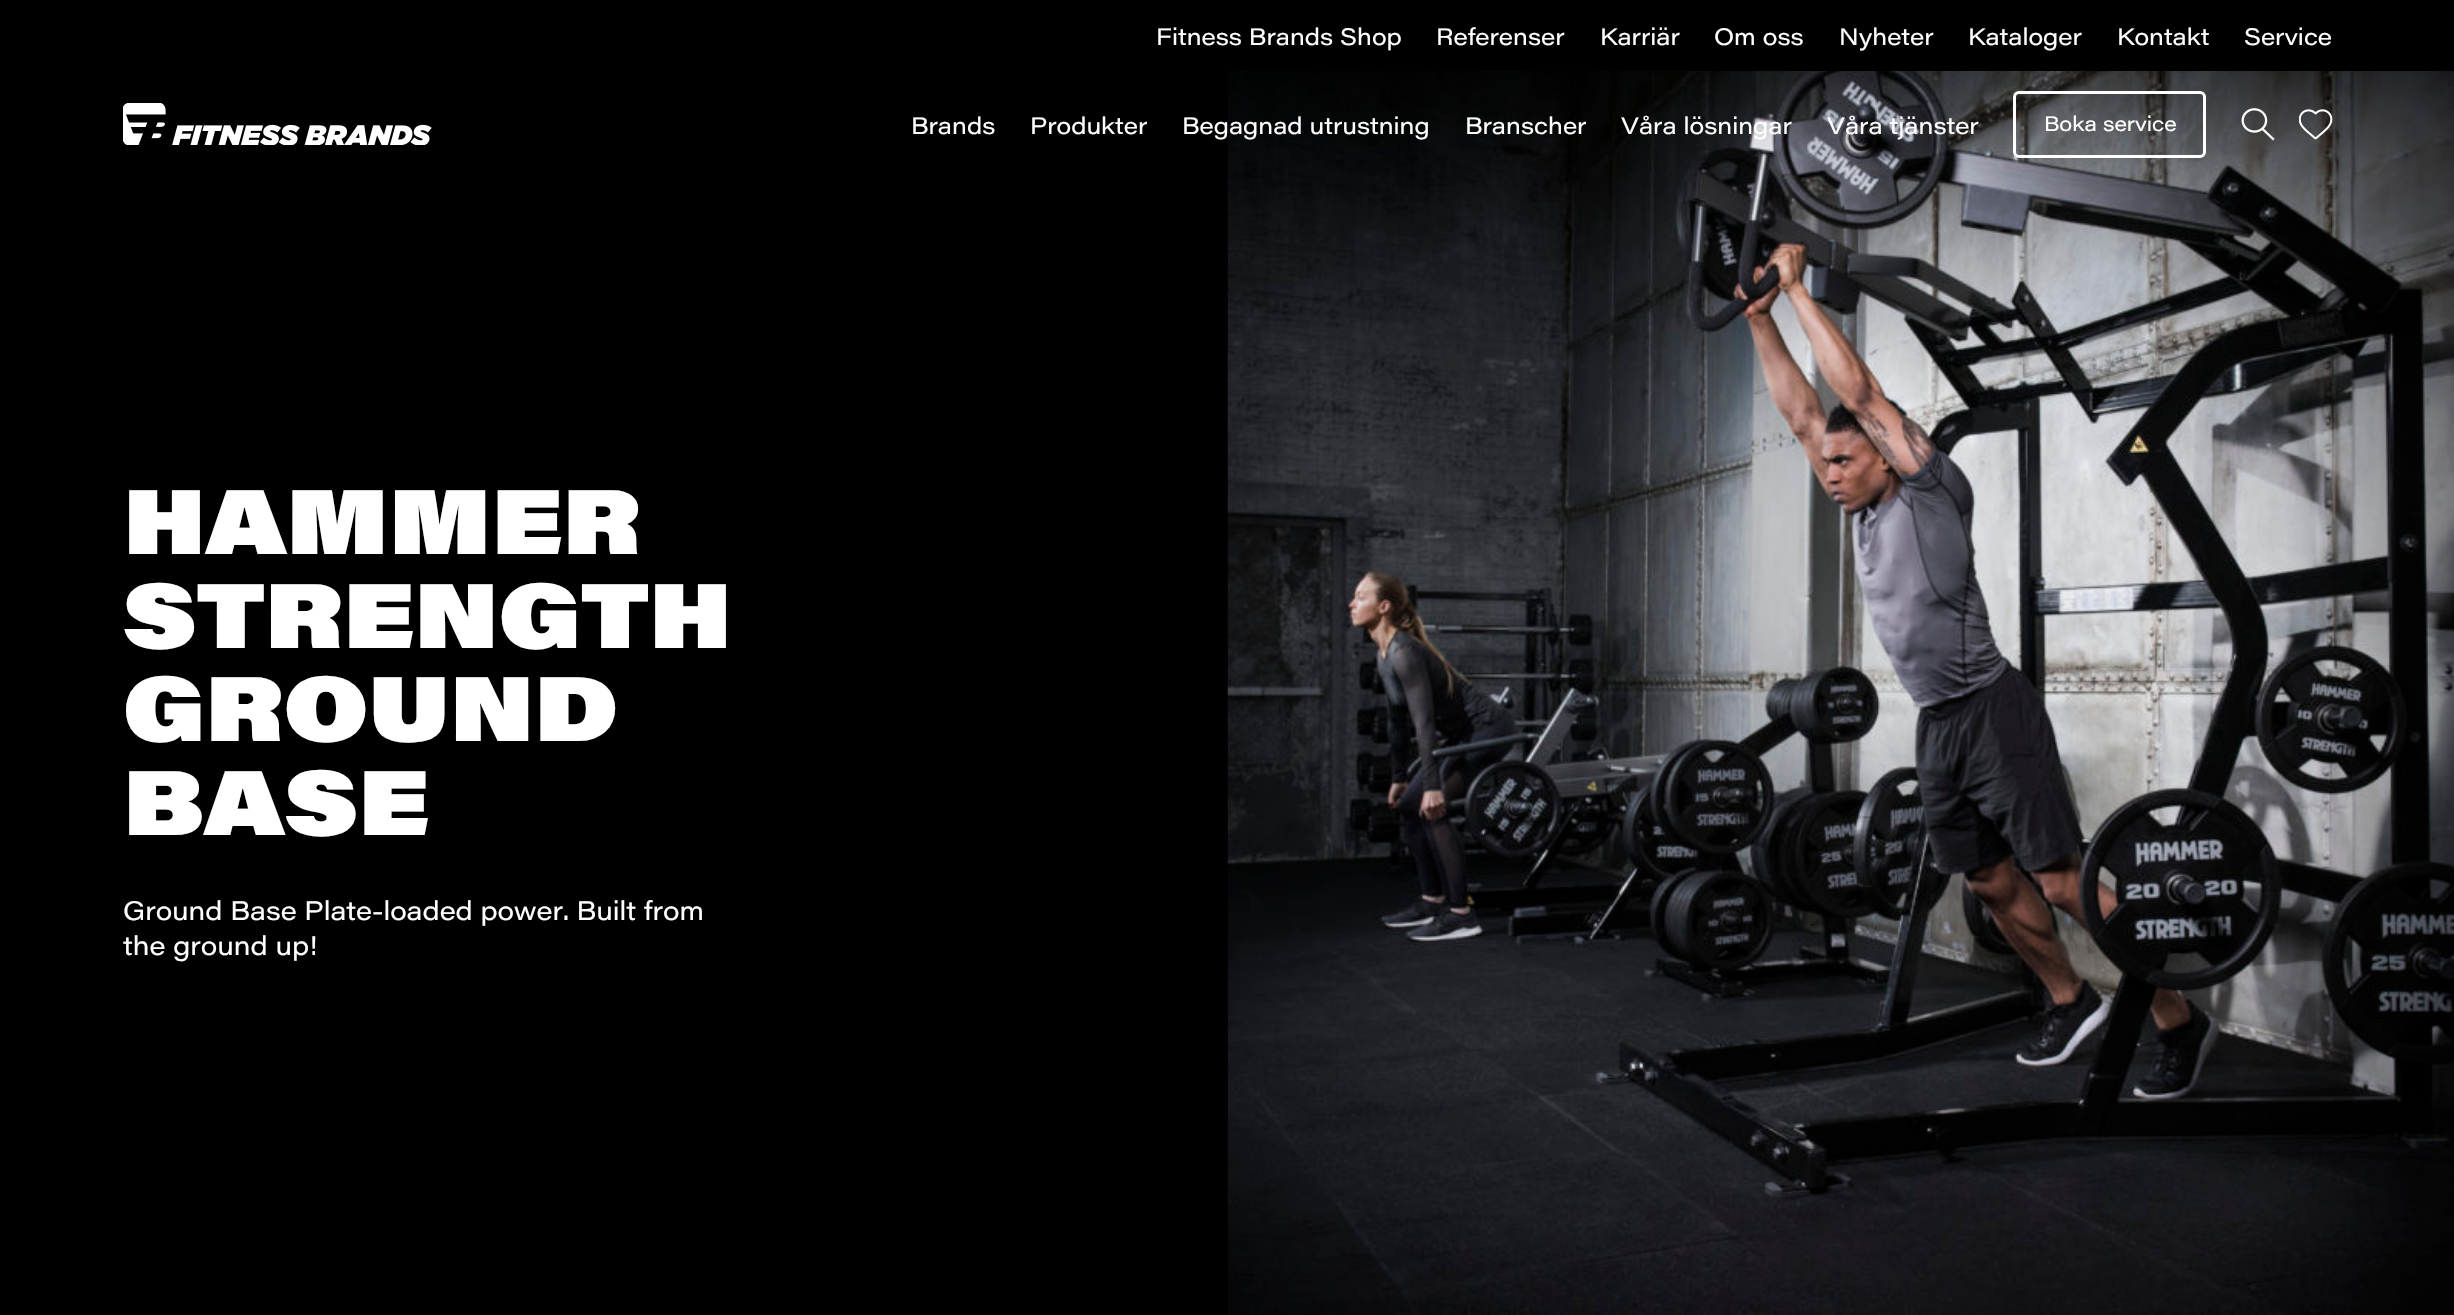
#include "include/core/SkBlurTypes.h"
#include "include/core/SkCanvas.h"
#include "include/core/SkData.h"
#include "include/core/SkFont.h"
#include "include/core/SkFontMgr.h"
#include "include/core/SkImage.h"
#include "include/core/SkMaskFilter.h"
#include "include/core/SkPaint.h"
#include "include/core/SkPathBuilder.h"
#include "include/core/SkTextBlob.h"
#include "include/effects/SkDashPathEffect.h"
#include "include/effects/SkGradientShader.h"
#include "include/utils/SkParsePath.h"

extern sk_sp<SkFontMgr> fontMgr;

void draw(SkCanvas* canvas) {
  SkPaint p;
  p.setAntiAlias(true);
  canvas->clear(SK_ColorBLACK);
  canvas->drawImageRect(SkImages::DeferredFromEncodedData(SkData::MakeFromFileName("images/1.png")), SkRect::MakeLTRB(123, 103, 432, 145), SkSamplingOptions());
  canvas->drawImageRect(SkImages::DeferredFromEncodedData(SkData::MakeFromFileName("images/4.png")), SkRect::MakeLTRB(1227, 71, 2454, 1315), SkSamplingOptions());
  p.setStyle(SkPaint::kStroke_Style);
  p.setStrokeWidth(3);
  p.setColor(SK_ColorWHITE);
  canvas->drawRoundRect(SkRect::MakeLTRB(2014.5f, 92.5f, 2204.5f, 156.5f), 4.5f, 4.5f, p);
  canvas->drawImageRect(SkImages::DeferredFromEncodedData(SkData::MakeFromFileName("images/2.png")), SkRect::MakeLTRB(2241, 108, 2275, 141), SkSamplingOptions());
  canvas->drawImageRect(SkImages::DeferredFromEncodedData(SkData::MakeFromFileName("images/3.png")), SkRect::MakeLTRB(2299, 109, 2333, 140), SkSamplingOptions());
  SkFont font1(fontMgr->matchFamilyStyle("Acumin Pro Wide", SkFontStyle::Normal()), 23.4f);
  font1.setSubpixel(true);
  p.setStyle(SkPaint::kFill_Style);
  canvas->drawString("Fitness Brands Shop", 1156, 45, font1, p);
  canvas->drawString("Referenser", 1436, 45, font1, p);
  canvas->drawString("Karriär", 1600, 45, font1, p);
  canvas->drawString("Om oss", 1714, 45, font1, p);
  canvas->drawString("Nyheter", 1839, 45, font1, p);
  canvas->drawString("Kataloger", 1968, 45, font1, p);
  canvas->drawString("Kontakt", 2117, 45, font1, p);
  canvas->drawString("Service", 2244, 45, font1, p);
  canvas->drawString("Brands", 911, 134, font1, p);
  canvas->drawString("Produkter", 1030, 134, font1, p);
  canvas->drawString("Begagnad utrustning", 1182, 134, font1, p);
  canvas->drawString("Branscher", 1465, 134, font1, p);
  canvas->drawString("Våra lösningar", 1621, 134, font1, p);
  canvas->drawString("Våra tjänster", 1827, 134, font1, p);
  SkFont font2(fontMgr->matchFamilyStyle("Acumin Pro Wide", SkFontStyle::Normal()), 20.5f);
  font2.setSubpixel(true);
  canvas->drawString("Boka service", 2044, 131, font2, p);
  SkFont font3(fontMgr->matchFamilyStyle("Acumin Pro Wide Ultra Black", SkFontStyle(800, SkFontStyle::kNormal_Width, SkFontStyle::kUpright_Slant)), 90.5f);
  font3.setSubpixel(true);
  canvas->drawString("HAMMER", 123, 554, font3, p);
  canvas->drawString("STRENGTH", 123, 648, font3, p);
  canvas->drawString("GROUND", 123, 741, font3, p);
  canvas->drawString("BASE", 123, 835, font3, p);
  SkFont font4(fontMgr->matchFamilyStyle("Acumin Pro Wide", SkFontStyle::Normal()), 26.3f);
  font4.setSubpixel(true);
  canvas->drawString("Ground Base Plate-loaded power. Built from", 123, 920, font4, p);
  canvas->drawString("the ground up!", 123, 955, font4, p);
}
